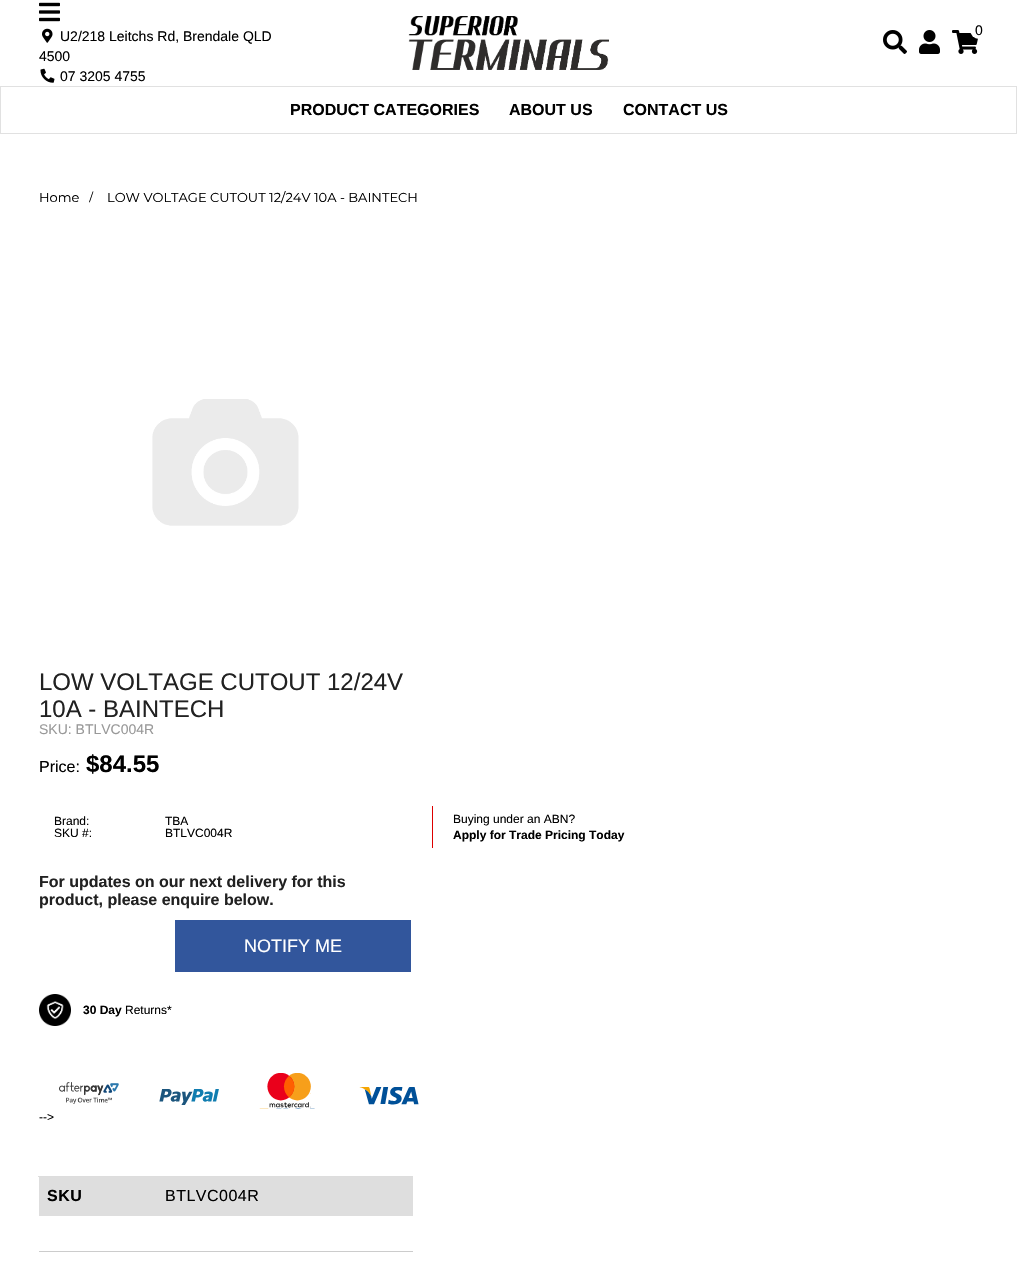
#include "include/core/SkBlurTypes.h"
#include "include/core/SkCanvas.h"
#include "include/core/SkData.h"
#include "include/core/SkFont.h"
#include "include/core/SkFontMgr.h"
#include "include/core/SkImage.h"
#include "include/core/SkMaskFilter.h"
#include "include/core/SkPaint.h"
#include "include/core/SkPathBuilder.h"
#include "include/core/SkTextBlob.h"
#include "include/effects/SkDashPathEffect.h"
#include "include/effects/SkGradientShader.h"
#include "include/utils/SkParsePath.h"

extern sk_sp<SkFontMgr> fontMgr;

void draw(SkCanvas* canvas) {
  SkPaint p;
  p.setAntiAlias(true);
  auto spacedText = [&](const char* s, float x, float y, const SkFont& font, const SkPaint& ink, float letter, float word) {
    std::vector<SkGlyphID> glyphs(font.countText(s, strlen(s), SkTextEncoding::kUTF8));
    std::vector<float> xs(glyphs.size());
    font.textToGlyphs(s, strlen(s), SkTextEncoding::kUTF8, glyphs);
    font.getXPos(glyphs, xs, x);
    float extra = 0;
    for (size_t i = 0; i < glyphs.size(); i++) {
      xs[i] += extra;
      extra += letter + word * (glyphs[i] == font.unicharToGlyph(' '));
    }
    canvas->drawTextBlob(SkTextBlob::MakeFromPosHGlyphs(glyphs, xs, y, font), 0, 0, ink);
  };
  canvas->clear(SK_ColorWHITE);
  canvas->drawImageRect(SkImages::DeferredFromEncodedData(SkData::MakeFromFileName("images/1.png")), SkRect::MakeLTRB(39, 2, 60, 22), SkSamplingOptions());
  canvas->drawImageRect(SkImages::DeferredFromEncodedData(SkData::MakeFromFileName("images/2.png")), SkRect::MakeLTRB(42, 28, 53, 43), SkSamplingOptions());
  canvas->drawImageRect(SkImages::DeferredFromEncodedData(SkData::MakeFromFileName("images/3.png")), SkRect::MakeLTRB(40, 68, 55, 83), SkSamplingOptions());
  canvas->drawImageRect(SkImages::DeferredFromEncodedData(SkData::MakeFromFileName("images/4.png")), SkRect::MakeLTRB(408, 16, 609, 70), SkSamplingOptions());
  canvas->drawImageRect(SkImages::DeferredFromEncodedData(SkData::MakeFromFileName("images/5.png")), SkRect::MakeLTRB(883, 30, 907, 54), SkSamplingOptions());
  canvas->drawImageRect(SkImages::DeferredFromEncodedData(SkData::MakeFromFileName("images/6.png")), SkRect::MakeLTRB(919, 30, 940, 54), SkSamplingOptions());
  canvas->drawImageRect(SkImages::DeferredFromEncodedData(SkData::MakeFromFileName("images/7.png")), SkRect::MakeLTRB(952, 30, 979, 54), SkSamplingOptions());
  p.setColor(SK_ColorWHITE);
  canvas->drawCircle(979, 30, 9, p);
  p.setStyle(SkPaint::kStroke_Style);
  p.setStrokeWidth(1);
  p.setColor(SkColorSetRGB(225, 225, 225));
  canvas->drawRect(SkRect::MakeLTRB(0.5f, 86.5f, 1016.5f, 133.5f), p);
  canvas->drawImageRect(SkImages::DeferredFromEncodedData(SkData::MakeFromFileName("images/8.png")), SkRect::MakeLTRB(152, 399, 299, 526), SkSamplingOptions());
  p.setStyle(SkPaint::kFill_Style);
  p.setColor(SkColorSetRGB(221, 0, 0));
  canvas->drawRect(SkRect::MakeLTRB(432, 806, 433, 848), p);
  p.setColor(SkColorSetRGB(50, 86, 156));
  canvas->drawRect(SkRect::MakeLTRB(175, 920, 411, 972), p);
  canvas->drawImageRect(SkImages::DeferredFromEncodedData(SkData::MakeFromFileName("images/9.png")), SkRect::MakeLTRB(39, 994, 71, 1026), SkSamplingOptions());
  canvas->drawImageRect(SkImages::DeferredFromEncodedData(SkData::MakeFromFileName("images/10.png")), SkRect::MakeLTRB(59, 1082, 119, 1104), SkSamplingOptions());
  canvas->drawImageRect(SkImages::DeferredFromEncodedData(SkData::MakeFromFileName("images/11.png")), SkRect::MakeLTRB(159, 1089, 219, 1105), SkSamplingOptions());
  canvas->drawImageRect(SkImages::DeferredFromEncodedData(SkData::MakeFromFileName("images/12.png")), SkRect::MakeLTRB(259, 1073, 315, 1109), SkSamplingOptions());
  canvas->drawImageRect(SkImages::DeferredFromEncodedData(SkData::MakeFromFileName("images/13.png")), SkRect::MakeLTRB(359, 1087, 419, 1105), SkSamplingOptions());
  p.setColor(SkColorSetRGB(222, 222, 222));
  canvas->drawRect(SkRect::MakeLTRB(39, 1177, 413, 1216), p);
  p.setColor(SkColorSetRGB(221, 221, 221));
  canvas->drawRect(SkRect::MakeLTRB(38, 1176, 413, 1177), p);
  p.setColor(SkColorSetRGB(204, 204, 204));
  canvas->drawRect(SkRect::MakeLTRB(39, 1251, 413, 1252), p);
  SkFont font1(fontMgr->matchFamilyStyle("Liberation Sans", SkFontStyle::Normal()), 14);
  font1.setSubpixel(true);
  p.setColor(SK_ColorBLACK);
  canvas->drawString("U2/218 Leitchs Rd, Brendale QLD", 60, 41, font1, p);
  canvas->drawString("4500", 39, 61, font1, p);
  canvas->drawString("07 3205 4755", 60, 81, font1, p);
  canvas->drawString("0", 975, 35, font1, p);
  SkFont font2(fontMgr->matchFamilyStyle("Liberation Sans", SkFontStyle::Bold()), 16);
  font2.setSubpixel(true);
  canvas->drawString("PRODUCT CATEGORIES", 290, 115, font2, p);
  canvas->drawString("ABOUT US", 509, 115, font2, p);
  canvas->drawString("CONTACT US", 623, 115, font2, p);
  SkFont font3(fontMgr->matchFamilyStyle("Montserrat", SkFontStyle::Normal()), 13);
  font3.setSubpixel(true);
  canvas->drawString("Home", 39, 202, font3, p);
  SkFont font4(fontMgr->matchFamilyStyle("Liberation Serif", SkFontStyle::Normal()), 16);
  font4.setSubpixel(true);
  canvas->drawString("/", 89, 202, font4, p);
  canvas->drawString("LOW VOLTAGE CUTOUT 12/24V 10A - BAINTECH", 107, 202, font3, p);
  SkFont font5(fontMgr->matchFamilyStyle("Liberation Sans", SkFontStyle::Normal()), 24);
  font5.setSubpixel(true);
  p.setColor(SkColorSetRGB(33, 33, 33));
  canvas->drawString("LOW VOLTAGE CUTOUT 12/24V", 39, 690, font5, p);
  canvas->drawString("10A - BAINTECH", 39, 717, font5, p);
  p.setColor(SkColorSetRGB(153, 153, 153));
  canvas->drawString("SKU: BTLVC004R", 39, 734, font1, p);
  SkFont font6(fontMgr->matchFamilyStyle("Liberation Sans", SkFontStyle::Normal()), 16);
  font6.setSubpixel(true);
  p.setColor(SK_ColorBLACK);
  canvas->drawString("Price:", 39, 772, font6, p);
  SkFont font7(fontMgr->matchFamilyStyle("Liberation Sans", SkFontStyle::Bold()), 24);
  font7.setSubpixel(true);
  canvas->drawString("$84.55", 86, 772, font7, p);
  SkFont font8(fontMgr->matchFamilyStyle("Liberation Sans", SkFontStyle::Normal()), 12);
  font8.setSubpixel(true);
  canvas->drawString("Brand:", 54, 825, font8, p);
  canvas->drawString("SKU #:", 54, 837, font8, p);
  canvas->drawString("TBA", 165, 825, font8, p);
  canvas->drawString("BTLVC004R", 165, 837, font8, p);
  canvas->drawString("Buying under an ABN?", 453, 823, font8, p);
  SkFont font9(fontMgr->matchFamilyStyle("Liberation Sans", SkFontStyle::Bold()), 12);
  font9.setSubpixel(true);
  canvas->drawString("Apply for Trade Pricing Today", 453, 839, font9, p);
  p.setColor(SkColorSetRGB(33, 33, 33));
  canvas->drawString("For updates on our next delivery for this", 39, 887, font2, p);
  canvas->drawString("product, please enquire below.", 39, 905, font2, p);
  SkFont font10(fontMgr->matchFamilyStyle("Liberation Sans", SkFontStyle::Normal()), 18);
  font10.setSubpixel(true);
  p.setColor(SK_ColorWHITE);
  canvas->drawString("NOTIFY ME", 244, 952, font10, p);
  p.setColor(SK_ColorBLACK);
  canvas->drawString("30 Day", 83, 1014, font9, p);
  canvas->drawString("Returns*", 125, 1014, font8, p);
  canvas->drawString("-->", 39, 1121, font8, p);
  spacedText("SKU", 47, 1201, font2, p, 0.5f, 0);
  spacedText("BTLVC004R", 165, 1201, font6, p, 0.5f, 0);
}
